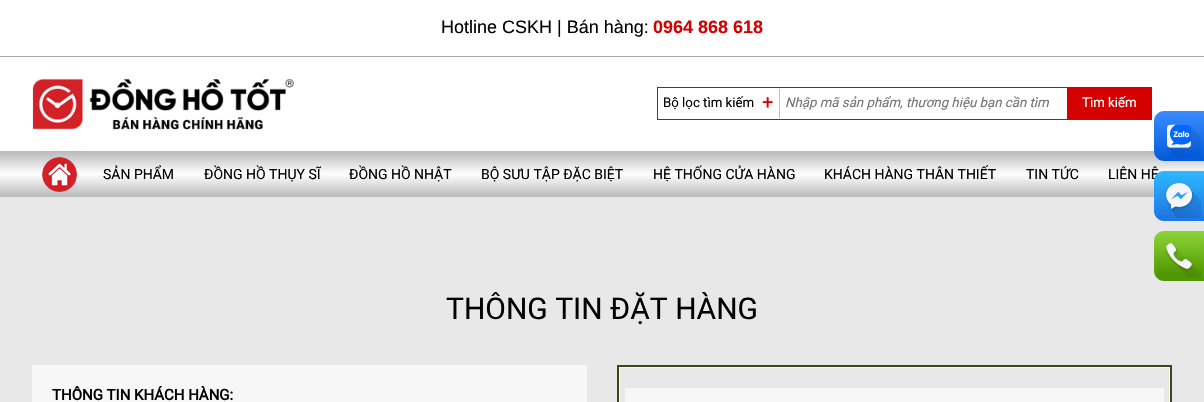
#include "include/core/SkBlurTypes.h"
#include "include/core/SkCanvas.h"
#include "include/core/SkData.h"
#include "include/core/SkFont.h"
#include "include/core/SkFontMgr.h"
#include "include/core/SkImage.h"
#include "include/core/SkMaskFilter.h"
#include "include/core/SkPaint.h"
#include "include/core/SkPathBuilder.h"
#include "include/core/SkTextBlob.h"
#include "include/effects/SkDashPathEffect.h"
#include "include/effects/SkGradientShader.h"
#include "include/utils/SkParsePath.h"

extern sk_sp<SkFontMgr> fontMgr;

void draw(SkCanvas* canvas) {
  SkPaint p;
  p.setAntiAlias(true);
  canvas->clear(SkColorSetRGB(232, 232, 232));
  p.setColor(SK_ColorWHITE);
  canvas->drawRect(SkRect::MakeLTRB(0, 0, 1204, 56), p);
  p.setColor(SkColorSetRGB(171, 171, 171));
  canvas->drawRect(SkRect::MakeLTRB(0, 56, 1204, 57), p);
  p.setColor(SK_ColorWHITE);
  canvas->drawRect(SkRect::MakeLTRB(0, 57, 1204, 151), p);
  canvas->drawImageRect(SkImages::DeferredFromEncodedData(SkData::MakeFromFileName("images/1.png")), SkRect::MakeLTRB(32, 78, 294, 130), SkSamplingOptions());
  p.setStyle(SkPaint::kStroke_Style);
  p.setStrokeWidth(1);
  p.setColor(SkColorSetRGB(213, 0, 0));
  canvas->drawRect(SkRect::MakeLTRB(657.5f, 87.5f, 1151.5f, 119.5f), p);
  p.setStyle(SkPaint::kFill_Style);
  p.setColor(SkColorSetRGB(193, 193, 193));
  canvas->drawRect(SkRect::MakeLTRB(779, 89, 780, 118), p);
  p.setColor(SkColorSetRGB(213, 0, 0));
  canvas->drawRect(SkRect::MakeLTRB(1067, 88, 1151, 119), p);
  {
    const SkColor colors[] = {SkColorSetRGB(182, 184, 186), SK_ColorWHITE, SkColorSetRGB(182, 184, 186)};
    const float stops[] = {0, 0.5f, 1};
    const SkPoint ends[] = {{602, 151}, {602, 197}};
    p.setShader(SkGradientShader::MakeLinear(ends, colors, stops, 3, SkTileMode::kClamp));
    p.setAlpha(255);
  }
  canvas->drawRect(SkRect::MakeLTRB(0, 151, 1204, 197), p);
  canvas->drawImageRect(SkImages::DeferredFromEncodedData(SkData::MakeFromFileName("images/2.png")), SkRect::MakeLTRB(42, 157, 77, 192), SkSamplingOptions());
  {
    const SkColor colors[] = {SkColorSetRGB(58, 139, 255), SkColorSetRGB(3, 90, 218)};
    const float stops[] = {0, 1};
    const SkPoint ends[] = {{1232, 111}, {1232, 161}};
    p.setShader(SkGradientShader::MakeLinear(ends, colors, stops, 2, SkTileMode::kClamp));
    p.setAlpha(255);
  }
  canvas->drawPath(SkPathBuilder().moveTo(1164, 111).lineTo(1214, 111).lineTo(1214, 161).lineTo(1164, 161).cubicTo(1158.5f, 161, 1154, 156.5f, 1154, 151).lineTo(1154, 121).cubicTo(1154, 115.5f, 1158.5f, 111, 1164, 111).close().detach(), p);
  canvas->drawImageRect(SkImages::DeferredFromEncodedData(SkData::MakeFromFileName("images/3.png")), SkRect::MakeLTRB(1167, 124, 1201, 158), SkSamplingOptions());
  {
    const SkColor colors[] = {SkColorSetRGB(138, 211, 54), SkColorSetRGB(80, 150, 0)};
    const float stops[] = {0, 0.92f};
    const SkPoint ends[] = {{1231, 231}, {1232, 281}};
    p.setShader(SkGradientShader::MakeLinear(ends, colors, stops, 2, SkTileMode::kClamp));
    p.setAlpha(255);
  }
  canvas->drawPath(SkPathBuilder().moveTo(1164, 231).lineTo(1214, 231).lineTo(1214, 281).lineTo(1164, 281).cubicTo(1158.5f, 281, 1154, 276.5f, 1154, 271).lineTo(1154, 241).cubicTo(1154, 235.5f, 1158.5f, 231, 1164, 231).close().detach(), p);
  canvas->drawImageRect(SkImages::DeferredFromEncodedData(SkData::MakeFromFileName("images/5.png")), SkRect::MakeLTRB(1157, 243, 1201, 278), SkSamplingOptions());
  p.setShader(nullptr);
  p.setColor(SkColorSetRGB(247, 247, 247));
  canvas->drawRect(SkRect::MakeLTRB(32, 365, 587, 402), p);
  p.setStyle(SkPaint::kStroke_Style);
  p.setStrokeWidth(2);
  p.setColor(SkColorSetRGB(62, 69, 25));
  canvas->drawRect(SkRect::MakeLTRB(618, 366, 1171, 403), p);
  p.setStrokeWidth(1);
  p.setColor(SkColorSetRGB(247, 247, 247));
  canvas->drawRect(SkRect::MakeLTRB(619.5f, 367.5f, 1169.5f, 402.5f), p);
  p.setStyle(SkPaint::kFill_Style);
  p.setColor(SkColorSetRGB(246, 246, 246));
  canvas->drawRect(SkRect::MakeLTRB(625, 388, 1164, 402), p);
  SkFont font1(fontMgr->matchFamilyStyle("Liberation Sans", SkFontStyle::Normal()), 18);
  font1.setSubpixel(true);
  p.setColor(SK_ColorBLACK);
  canvas->drawString("Hotline CSKH | Bán hàng:", 441, 33, font1, p);
  SkFont font2(fontMgr->matchFamilyStyle("Liberation Sans", SkFontStyle::Bold()), 18);
  font2.setSubpixel(true);
  p.setColor(SkColorSetRGB(213, 0, 0));
  canvas->drawString("0964 868 618", 653, 33, font2, p);
  SkFont font3(fontMgr->matchFamilyStyle("Roboto", SkFontStyle::Normal()), 13.25f);
  font3.setSubpixel(true);
  p.setColor(SK_ColorBLACK);
  canvas->drawString("Bộ lọc tìm kiếm", 663, 107, font3, p);
  SkFont font4(fontMgr->matchFamilyStyle("Roboto", SkFontStyle::Normal()), 20);
  font4.setSubpixel(true);
  p.setColor(SkColorSetRGB(213, 0, 0));
  canvas->drawString("+", 762, 109, font4, p);
  SkFont font5(fontMgr->matchFamilyStyle("Roboto", SkFontStyle::Italic()), 13.25f);
  font5.setSubpixel(true);
  p.setColor(SkColorSetRGB(117, 117, 117));
  canvas->drawString("Nhập mã sản phẩm, thương hiệu bạn cần tìm", 785, 107, font5, p);
  p.setColor(SK_ColorWHITE);
  canvas->drawString("Tìm kiếm", 1082, 107, font3, p);
  SkFont font6(fontMgr->matchFamilyStyle("Roboto", SkFontStyle::Normal()), 14);
  font6.setSubpixel(true);
  p.setColor(SK_ColorBLACK);
  canvas->drawString("SẢN PHẨM", 103, 179, font6, p);
  canvas->drawString("ĐỒNG HỒ THỤY SĨ", 204, 179, font6, p);
  canvas->drawString("ĐỒNG HỒ NHẬT", 349, 179, font6, p);
  canvas->drawString("BỘ SƯU TẬP ĐẶC BIỆT", 481, 179, font6, p);
  canvas->drawString("HỆ THỐNG CỬA HÀNG", 653, 179, font6, p);
  canvas->drawString("KHÁCH HÀNG THÂN THIẾT", 824, 179, font6, p);
  canvas->drawString("TIN TỨC", 1026, 179, font6, p);
  canvas->drawString("LIÊN HỆ", 1108, 179, font6, p);
  {
    const SkColor colors[] = {SkColorSetRGB(29, 119, 226), SkColorSetRGB(44, 183, 255)};
    const float stops[] = {0.01f, 0.99f};
    const SkPoint ends[] = {{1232, 221}, {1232, 171}};
    p.setShader(SkGradientShader::MakeLinear(ends, colors, stops, 2, SkTileMode::kClamp));
    p.setAlpha(255);
  }
  canvas->drawPath(SkPathBuilder().moveTo(1164, 171).lineTo(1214, 171).lineTo(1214, 221).lineTo(1164, 221).cubicTo(1158.5f, 221, 1154, 216.5f, 1154, 211).lineTo(1154, 181).cubicTo(1154, 175.5f, 1158.5f, 171, 1164, 171).close().detach(), p);
  canvas->drawImageRect(SkImages::DeferredFromEncodedData(SkData::MakeFromFileName("images/4.png")), SkRect::MakeLTRB(1158, 183, 1201, 218), SkSamplingOptions());
  SkFont font7(fontMgr->matchFamilyStyle("Roboto", SkFontStyle::Normal()), 30);
  font7.setSubpixel(true);
  p.setShader(nullptr);
  p.setColor(SK_ColorBLACK);
  canvas->drawString("THÔNG TIN ĐẶT HÀNG", 446, 319, font7, p);
  SkFont font8(fontMgr->matchFamilyStyle("Roboto", SkFontStyle::Bold()), 15);
  font8.setSubpixel(true);
  canvas->drawString("THÔNG TIN KHÁCH HÀNG:", 52, 400, font8, p);
}
